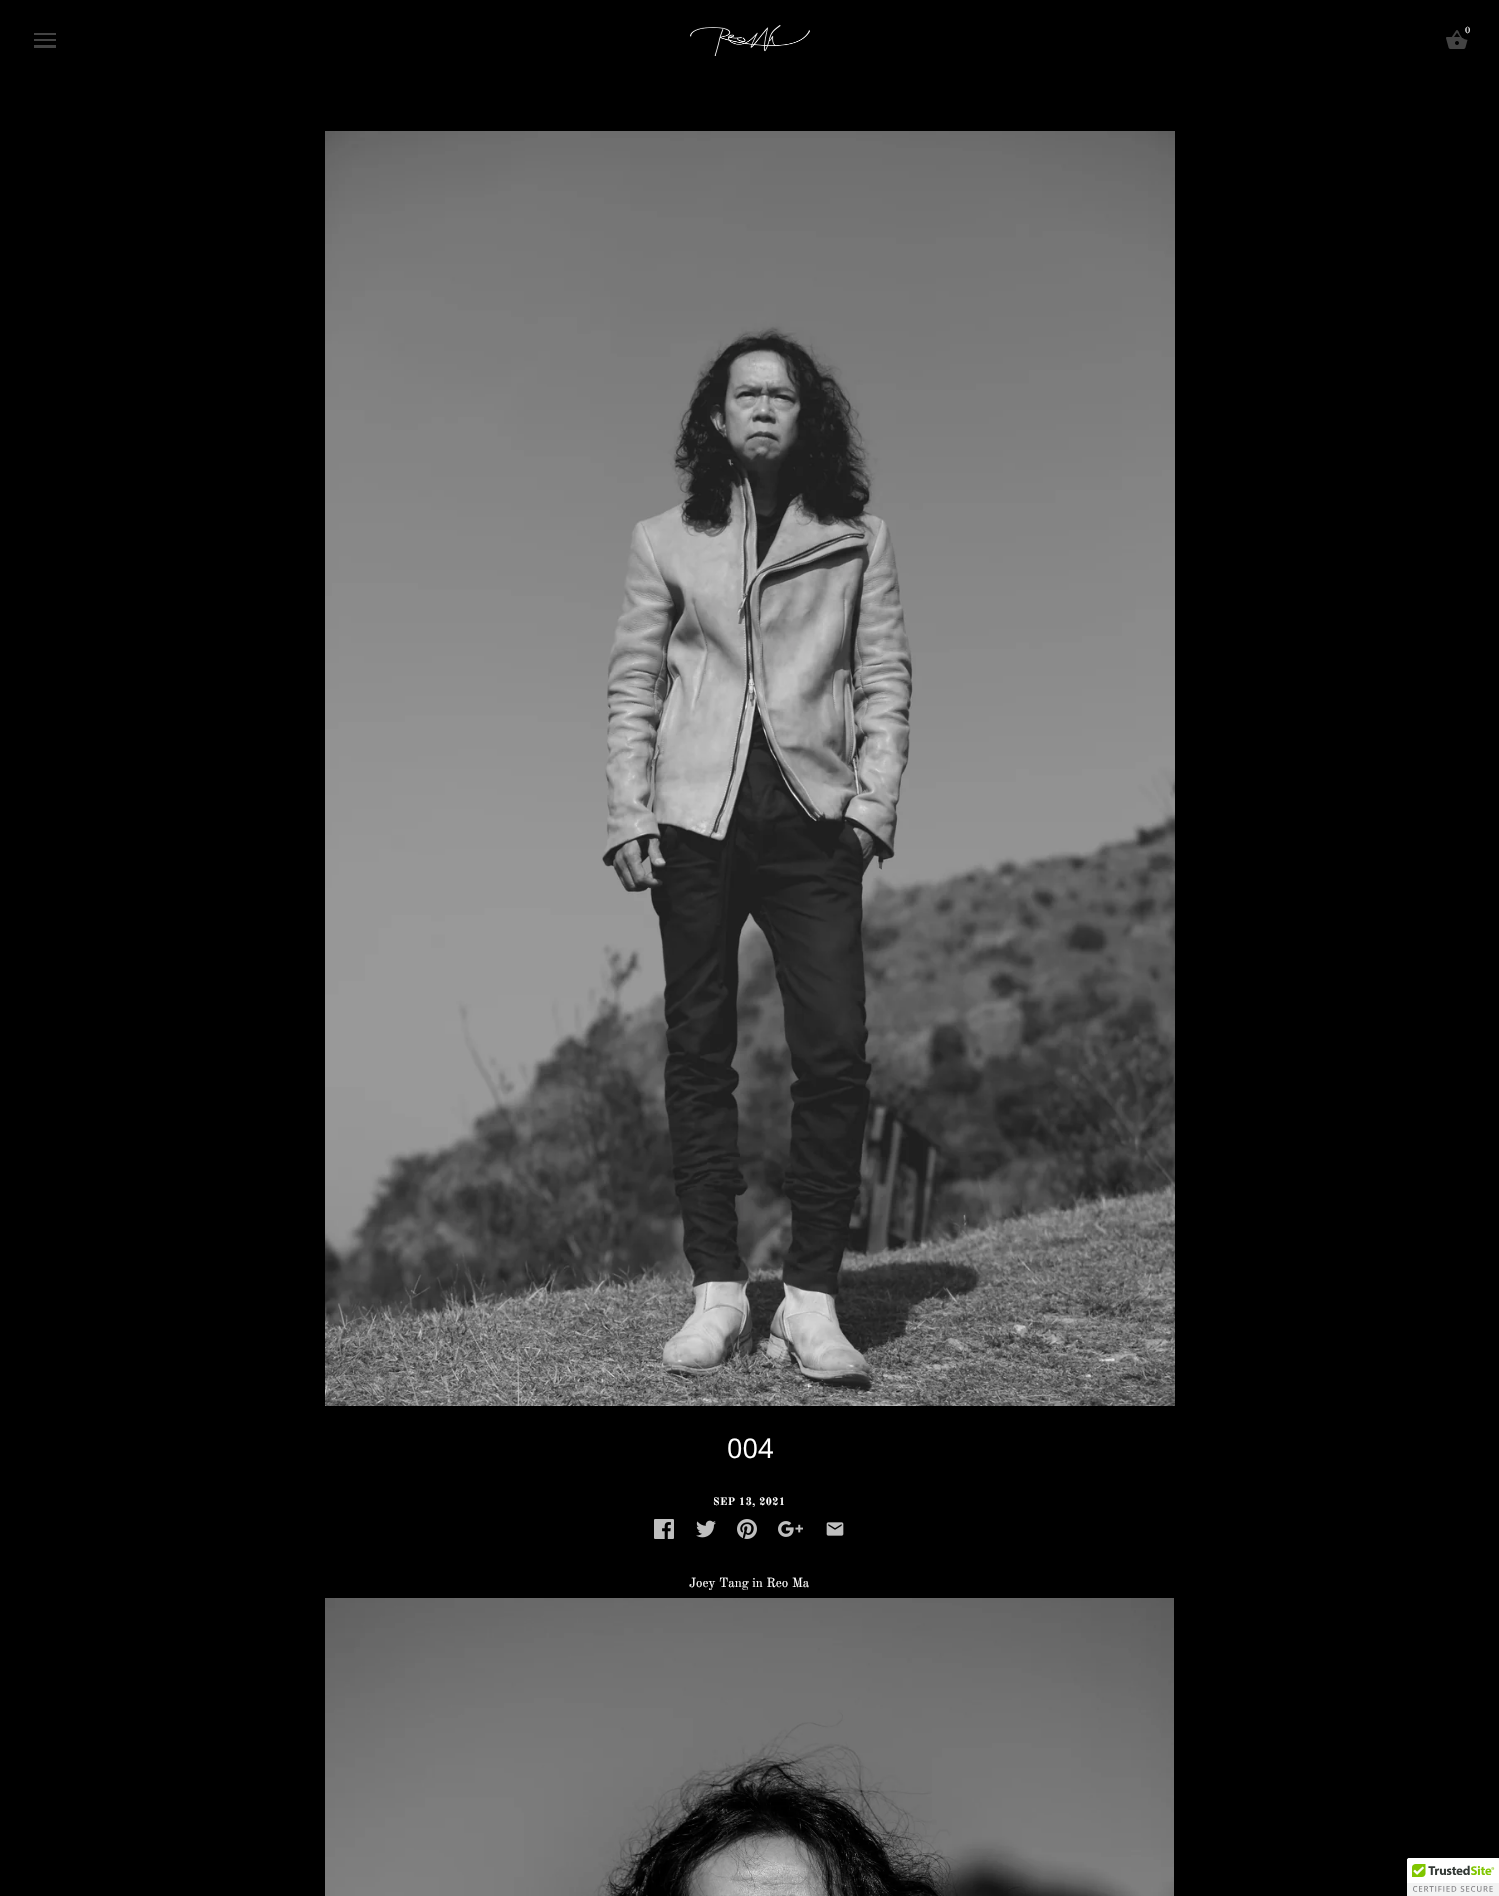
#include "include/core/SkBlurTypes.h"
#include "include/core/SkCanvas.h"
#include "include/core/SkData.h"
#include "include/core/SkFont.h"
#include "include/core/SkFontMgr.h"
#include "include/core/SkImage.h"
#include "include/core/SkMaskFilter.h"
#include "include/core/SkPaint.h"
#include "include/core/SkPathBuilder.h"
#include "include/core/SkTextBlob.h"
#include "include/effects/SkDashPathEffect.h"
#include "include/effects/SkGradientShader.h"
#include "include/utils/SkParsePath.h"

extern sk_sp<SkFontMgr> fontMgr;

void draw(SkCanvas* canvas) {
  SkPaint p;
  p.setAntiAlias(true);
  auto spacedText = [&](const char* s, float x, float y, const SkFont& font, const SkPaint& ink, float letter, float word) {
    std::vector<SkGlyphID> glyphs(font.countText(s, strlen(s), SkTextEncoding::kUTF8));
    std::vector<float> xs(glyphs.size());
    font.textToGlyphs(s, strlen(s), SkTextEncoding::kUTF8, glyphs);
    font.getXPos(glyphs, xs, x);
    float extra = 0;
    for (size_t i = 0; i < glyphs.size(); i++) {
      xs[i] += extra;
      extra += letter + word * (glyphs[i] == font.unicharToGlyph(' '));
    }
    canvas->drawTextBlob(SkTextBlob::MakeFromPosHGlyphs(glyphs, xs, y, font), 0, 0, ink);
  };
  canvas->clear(SK_ColorBLACK);
  canvas->drawImageRect(SkImages::DeferredFromEncodedData(SkData::MakeFromFileName("images/1.png")), SkRect::MakeLTRB(690, 25, 810, 56), SkSamplingOptions());
  canvas->drawImageRect(SkImages::DeferredFromEncodedData(SkData::MakeFromFileName("images/2.png")), SkRect::MakeLTRB(1446, 30, 1468, 49), SkSamplingOptions());
  p.setColor(SK_ColorBLACK);
  canvas->drawCircle(1468, 31, 9, p);
  p.setColor(SkColorSetRGB(67, 67, 67));
  canvas->drawRect(SkRect::MakeLTRB(34, 33, 56, 35), p);
  canvas->drawRect(SkRect::MakeLTRB(34, 39, 56, 41), p);
  canvas->drawRect(SkRect::MakeLTRB(34, 45, 56, 48), p);
  canvas->drawImageRect(SkImages::DeferredFromEncodedData(SkData::MakeFromFileName("images/3.png")), SkRect::MakeLTRB(325, 131, 1175, 1406), SkSamplingOptions());
  canvas->drawImageRect(SkImages::DeferredFromEncodedData(SkData::MakeFromFileName("images/4.png")), SkRect::MakeLTRB(654, 1519, 674, 1539), SkSamplingOptions());
  canvas->drawImageRect(SkImages::DeferredFromEncodedData(SkData::MakeFromFileName("images/5.png")), SkRect::MakeLTRB(696, 1520, 716, 1538), SkSamplingOptions());
  canvas->drawImageRect(SkImages::DeferredFromEncodedData(SkData::MakeFromFileName("images/6.png")), SkRect::MakeLTRB(737, 1519, 757, 1539), SkSamplingOptions());
  canvas->drawImageRect(SkImages::DeferredFromEncodedData(SkData::MakeFromFileName("images/7.png")), SkRect::MakeLTRB(778, 1521, 803, 1537), SkSamplingOptions());
  canvas->drawImageRect(SkImages::DeferredFromEncodedData(SkData::MakeFromFileName("images/8.png")), SkRect::MakeLTRB(826, 1522, 844, 1536), SkSamplingOptions());
  canvas->drawImageRect(SkImages::DeferredFromEncodedData(SkData::MakeFromFileName("images/9.png")), SkRect::MakeLTRB(325, 1598, 1174, 1896), SkSamplingOptions());
  p.setColor(SK_ColorWHITE);
  canvas->drawPath(SkPathBuilder().moveTo(1409, 1858).lineTo(1499, 1858).lineTo(1499, 1896).lineTo(1407, 1896).lineTo(1407, 1860).cubicTo(1407, 1859, 1408, 1858, 1409, 1858).close().detach(), p);
  canvas->drawImageRect(SkImages::DeferredFromEncodedData(SkData::MakeFromFileName("images/10.png")), SkRect::MakeLTRB(1407, 1858, 1499, 1896), SkSamplingOptions());
  SkFont font1(fontMgr->matchFamilyStyle("Old Standard TT", SkFontStyle::Normal()), 9);
  font1.setSubpixel(true);
  canvas->drawString("0", 1465, 33, font1, p);
  SkFont font2(fontMgr->matchFamilyStyle("Open Sans", SkFontStyle::Normal()), 27);
  font2.setSubpixel(true);
  canvas->drawString("004", 727, 1458, font2, p);
  SkFont font3(fontMgr->matchFamilyStyle("Old Standard TT", SkFontStyle::Bold()), 10.5f);
  font3.setSubpixel(true);
  spacedText("SEP 13, 2021", 713, 1505, font3, p, 0.5f, 0);
  SkFont font4(fontMgr->matchFamilyStyle("Old Standard TT", SkFontStyle::Normal()), 13);
  font4.setSubpixel(true);
  canvas->drawString("Joey Tang in Reo Ma", 689, 1587, font4, p);
}
